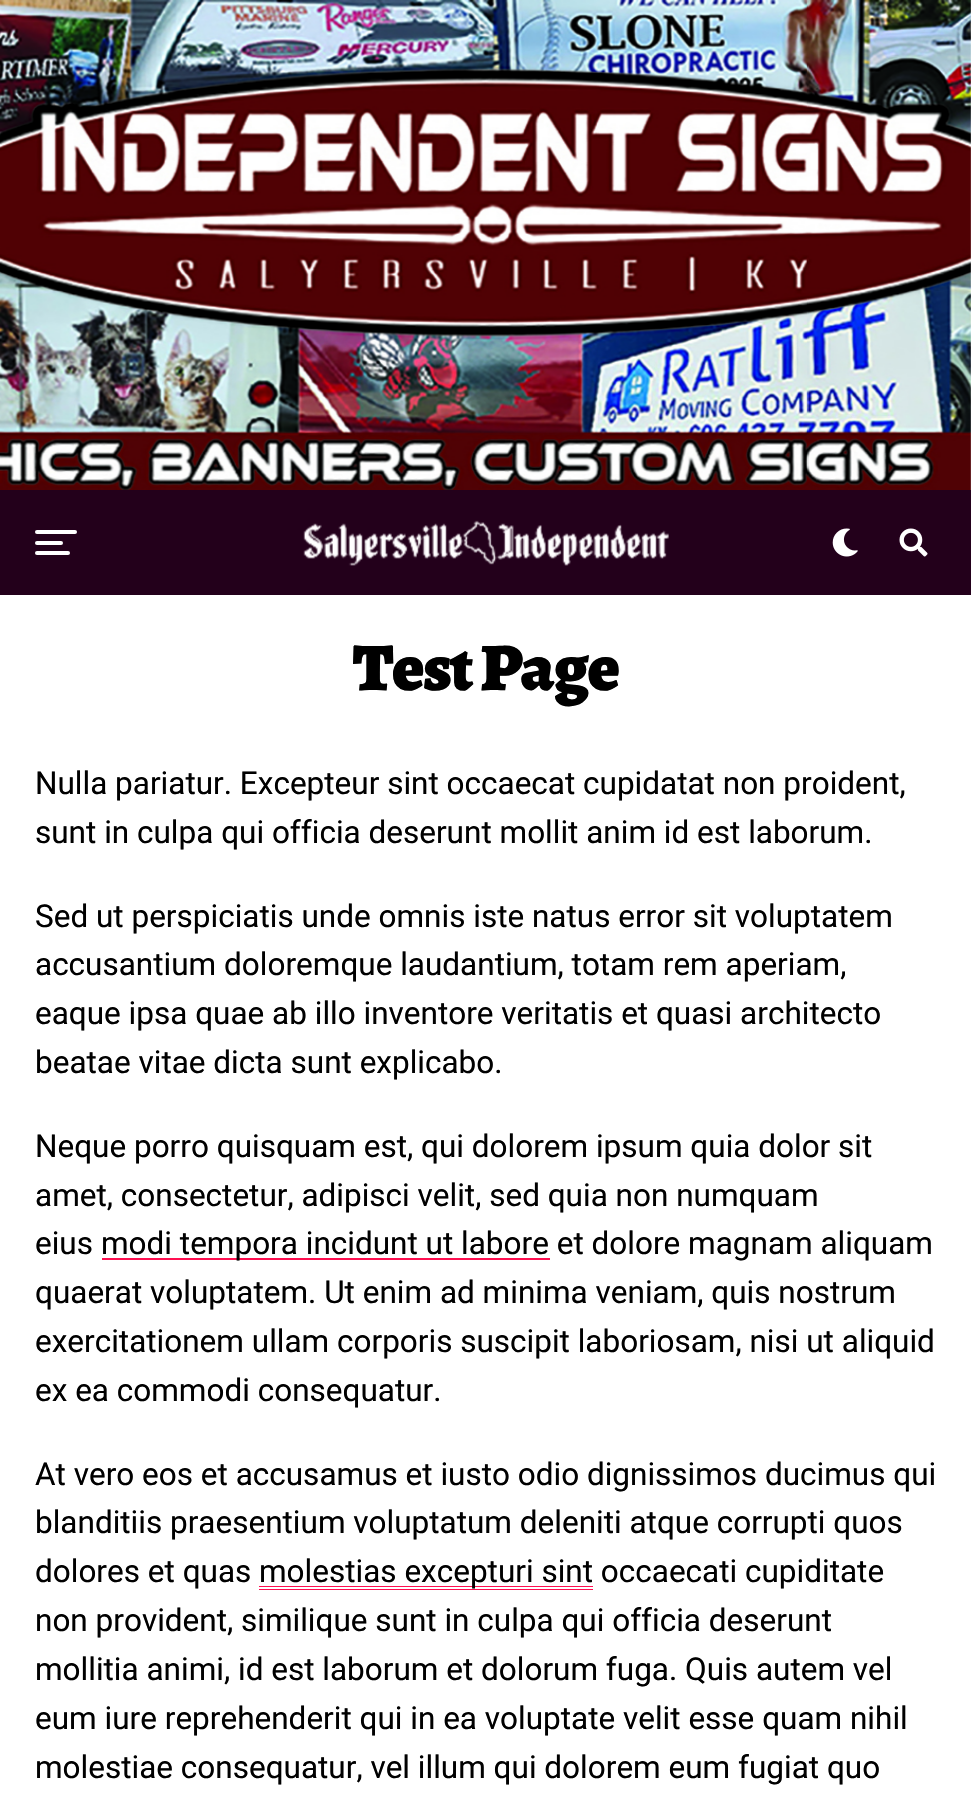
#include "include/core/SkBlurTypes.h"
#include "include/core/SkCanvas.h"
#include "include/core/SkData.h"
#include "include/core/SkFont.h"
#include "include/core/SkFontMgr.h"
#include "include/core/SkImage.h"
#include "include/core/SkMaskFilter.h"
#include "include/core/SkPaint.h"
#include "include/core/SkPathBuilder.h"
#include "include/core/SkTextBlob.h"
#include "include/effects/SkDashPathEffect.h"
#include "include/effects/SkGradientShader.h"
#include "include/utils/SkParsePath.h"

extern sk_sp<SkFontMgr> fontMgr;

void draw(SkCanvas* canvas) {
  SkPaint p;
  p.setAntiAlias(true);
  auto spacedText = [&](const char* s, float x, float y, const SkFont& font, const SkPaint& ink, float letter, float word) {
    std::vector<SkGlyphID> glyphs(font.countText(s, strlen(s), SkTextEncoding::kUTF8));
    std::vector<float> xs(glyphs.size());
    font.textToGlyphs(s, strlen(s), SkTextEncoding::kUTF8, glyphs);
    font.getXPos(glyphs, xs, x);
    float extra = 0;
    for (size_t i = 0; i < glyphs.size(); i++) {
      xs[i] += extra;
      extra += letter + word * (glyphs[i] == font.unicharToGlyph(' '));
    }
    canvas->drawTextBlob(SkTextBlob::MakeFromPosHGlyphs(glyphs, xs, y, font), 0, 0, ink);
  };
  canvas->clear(SK_ColorWHITE);
  canvas->drawImageRect(SkImages::DeferredFromEncodedData(SkData::MakeFromFileName("images/1.png")), SkRect::MakeLTRB(0, 0, 971, 490), SkSamplingOptions());
  p.setColor(SkColorSetRGB(35, 0, 27));
  canvas->drawRect(SkRect::MakeLTRB(0, 490, 971, 595), p);
  p.setColor(SK_ColorWHITE);
  canvas->drawRoundRect(SkRect::MakeLTRB(35, 530, 77, 534), 2, 2, p);
  canvas->drawRoundRect(SkRect::MakeLTRB(35, 541, 63, 545), 2, 2, p);
  canvas->drawRoundRect(SkRect::MakeLTRB(35, 551, 70, 555), 2, 2, p);
  canvas->drawImageRect(SkImages::DeferredFromEncodedData(SkData::MakeFromFileName("images/2.png")), SkRect::MakeLTRB(303, 520, 669, 566), SkSamplingOptions());
  canvas->drawImageRect(SkImages::DeferredFromEncodedData(SkData::MakeFromFileName("images/3.png")), SkRect::MakeLTRB(832, 528, 858, 557), SkSamplingOptions());
  canvas->drawImageRect(SkImages::DeferredFromEncodedData(SkData::MakeFromFileName("images/4.png")), SkRect::MakeLTRB(899, 528, 928, 557), SkSamplingOptions());
  p.setColor(SkColorSetRGB(255, 14, 80));
  canvas->drawRect(SkRect::MakeLTRB(102, 1258, 550, 1260), p);
  canvas->drawRect(SkRect::MakeLTRB(259, 1586, 593, 1590), p);
  p.setColor(SK_ColorWHITE);
  canvas->drawRect(SkRect::MakeLTRB(259, 1587, 593, 1589), p);
  SkFont font1(fontMgr->matchFamilyStyle("Alegreya", SkFontStyle(900, SkFontStyle::kNormal_Width, SkFontStyle::kUpright_Slant)), 68);
  font1.setSubpixel(true);
  p.setColor(SK_ColorBLACK);
  spacedText("Test Page", 353, 690, font1, p, -1.25f, 0);
  SkFont font2(fontMgr->matchFamilyStyle("Roboto", SkFontStyle::Normal()), 31.5f);
  font2.setSubpixel(true);
  canvas->drawString("Nulla pariatur. Excepteur sint occaecat cupidatat non proident,", 35, 794, font2, p);
  canvas->drawString("sunt in culpa qui officia deserunt mollit anim id est laborum.", 35, 843, font2, p);
  canvas->drawString("Sed ut perspiciatis unde omnis iste natus error sit voluptatem", 35, 927, font2, p);
  canvas->drawString("accusantium doloremque laudantium, totam rem aperiam,", 35, 975, font2, p);
  canvas->drawString("eaque ipsa quae ab illo inventore veritatis et quasi architecto", 35, 1024, font2, p);
  canvas->drawString("beatae vitae dicta sunt explicabo.", 35, 1073, font2, p);
  canvas->drawString("Neque porro quisquam est, qui dolorem ipsum quia dolor sit", 35, 1157, font2, p);
  canvas->drawString("amet, consectetur, adipisci velit, sed quia non numquam", 35, 1206, font2, p);
  canvas->drawString("eius", 35, 1254, font2, p);
  canvas->drawString("modi tempora incidunt ut labore et dolore magnam aliquam", 101, 1254, font2, p);
  canvas->drawString("quaerat voluptatem. Ut enim ad minima veniam, quis nostrum", 35, 1303, font2, p);
  canvas->drawString("exercitationem ullam corporis suscipit laboriosam, nisi ut aliquid", 35, 1352, font2, p);
  canvas->drawString("ex ea commodi consequatur.", 35, 1401, font2, p);
  canvas->drawString("At vero eos et accusamus et iusto odio dignissimos ducimus qui", 35, 1485, font2, p);
  canvas->drawString("blanditiis praesentium voluptatum deleniti atque corrupti quos", 35, 1533, font2, p);
  canvas->drawString("dolores et quas", 35, 1582, font2, p);
  canvas->drawString("molestias excepturi sint occaecati cupiditate", 259, 1582, font2, p);
  canvas->drawString("non provident, similique sunt in culpa qui officia deserunt", 35, 1631, font2, p);
  canvas->drawString("mollitia animi, id est laborum et dolorum fuga. Quis autem vel", 35, 1680, font2, p);
  canvas->drawString("eum iure reprehenderit qui in ea voluptate velit esse quam nihil", 35, 1729, font2, p);
  canvas->drawString("molestiae consequatur, vel illum qui dolorem eum fugiat quo", 35, 1778, font2, p);
}
